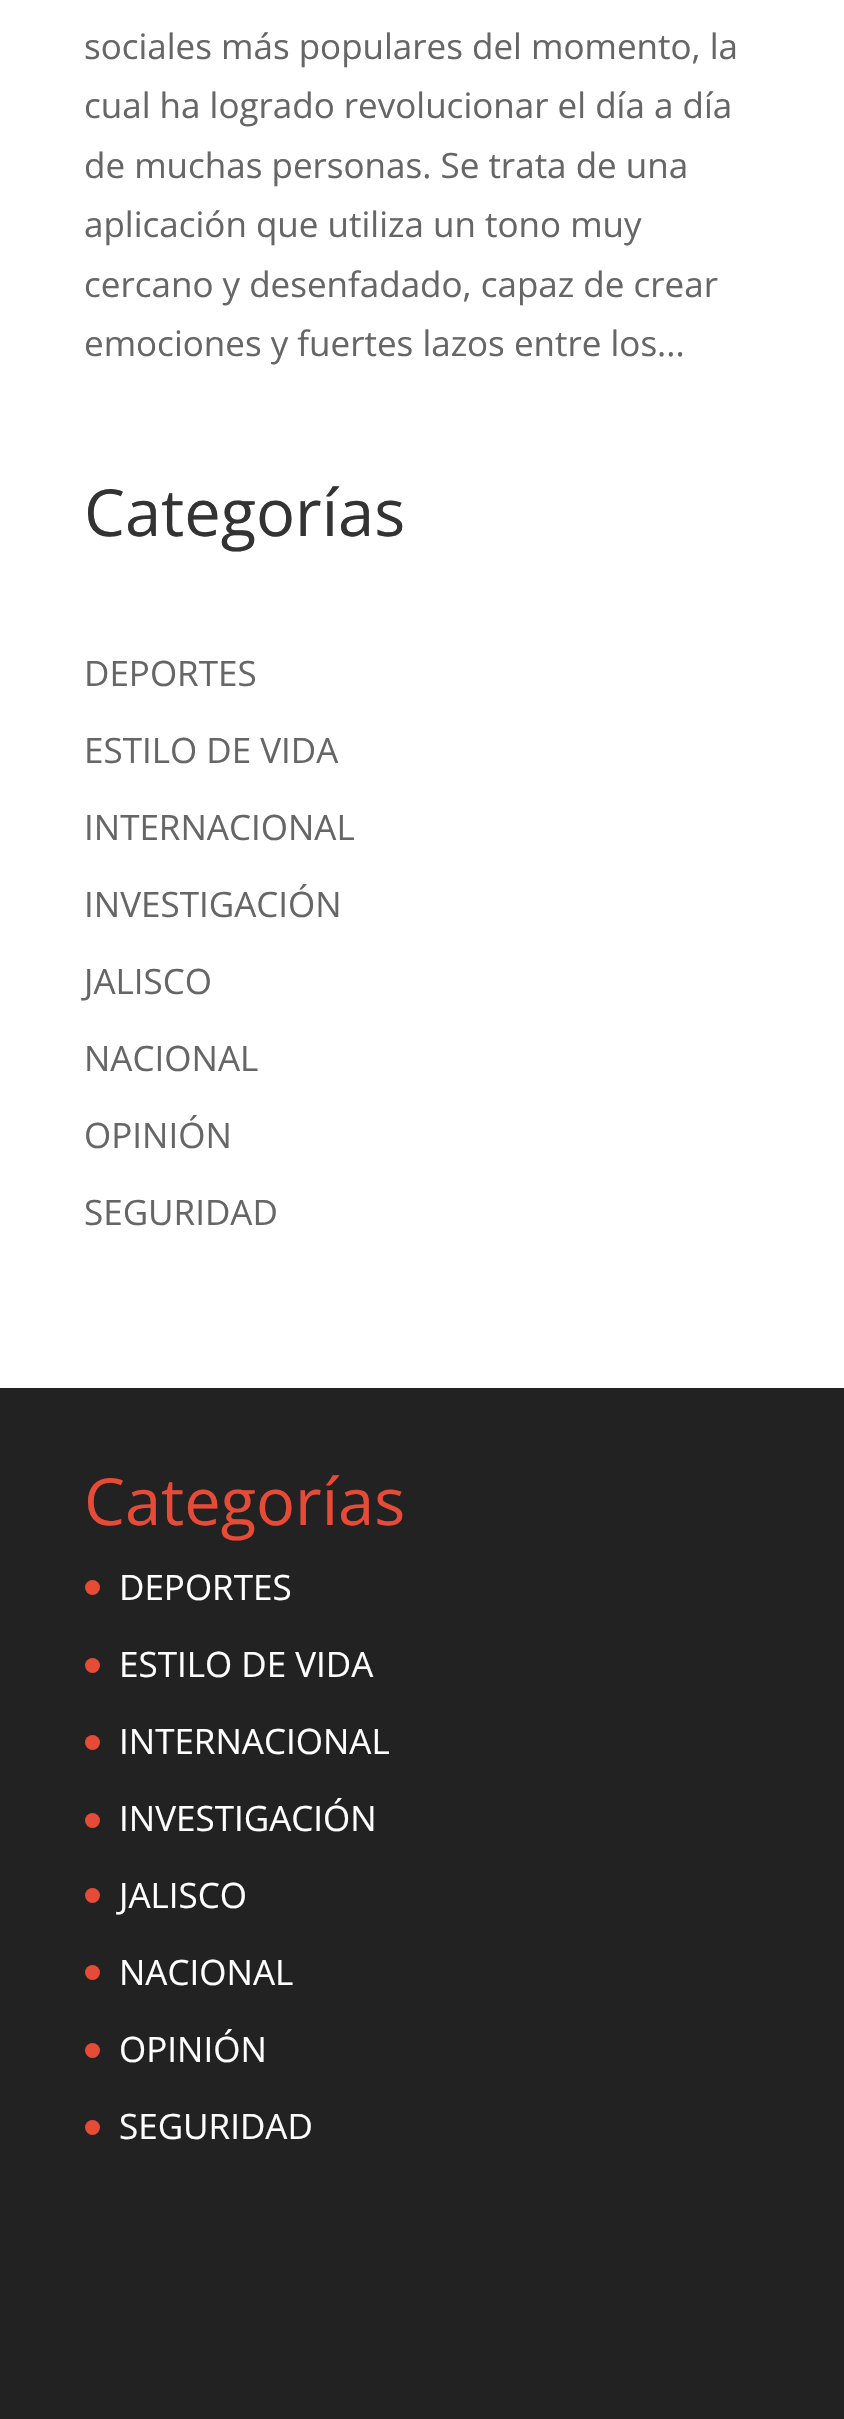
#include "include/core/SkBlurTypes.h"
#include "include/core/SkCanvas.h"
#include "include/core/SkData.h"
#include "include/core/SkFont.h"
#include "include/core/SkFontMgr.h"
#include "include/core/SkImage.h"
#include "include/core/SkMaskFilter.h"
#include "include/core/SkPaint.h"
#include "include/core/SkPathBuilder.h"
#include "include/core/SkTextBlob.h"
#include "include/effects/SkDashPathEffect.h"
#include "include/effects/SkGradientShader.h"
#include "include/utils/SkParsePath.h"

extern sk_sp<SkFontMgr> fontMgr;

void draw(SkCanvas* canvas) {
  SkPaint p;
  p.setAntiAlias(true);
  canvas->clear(SK_ColorWHITE);
  p.setColor(SkColorSetRGB(34, 34, 34));
  canvas->drawRect(SkRect::MakeLTRB(0, 1388, 844, 2419), p);
  p.setColor(SkColorSetRGB(230, 75, 56));
  canvas->drawCircle(92.5f, 1587.5f, 7.5f, p);
  canvas->drawCircle(92.5f, 1665.5f, 7.5f, p);
  canvas->drawCircle(92.5f, 1742.5f, 7.5f, p);
  canvas->drawCircle(92.5f, 1820.5f, 7.5f, p);
  canvas->drawCircle(92.5f, 1895.5f, 7.5f, p);
  canvas->drawCircle(92.5f, 1972.5f, 7.5f, p);
  canvas->drawCircle(92.5f, 2050.5f, 7.5f, p);
  canvas->drawCircle(92.5f, 2127.5f, 7.5f, p);
  SkFont font1(fontMgr->matchFamilyStyle("Open Sans", SkFontStyle::Normal()), 35);
  font1.setSubpixel(true);
  p.setColor(SkColorSetRGB(102, 102, 102));
  canvas->drawString("sociales más populares del momento, la", 84, 59, font1, p);
  canvas->drawString("cual ha logrado revolucionar el día a día", 84, 118, font1, p);
  canvas->drawString("de muchas personas. Se trata de una", 84, 178, font1, p);
  canvas->drawString("aplicación que utiliza un tono muy", 84, 237, font1, p);
  canvas->drawString("cercano y desenfadado, capaz de crear", 84, 297, font1, p);
  canvas->drawString("emociones y fuertes lazos entre los...", 84, 356, font1, p);
  SkFont font2(fontMgr->matchFamilyStyle("Open Sans", SkFontStyle::Normal()), 65);
  font2.setSubpixel(true);
  p.setColor(SkColorSetRGB(51, 51, 51));
  canvas->drawString("Categorías", 84, 536, font2, p);
  p.setColor(SkColorSetRGB(102, 102, 102));
  canvas->drawString("DEPORTES", 84, 686, font1, p);
  canvas->drawString("ESTILO DE VIDA", 84, 763, font1, p);
  canvas->drawString("INTERNACIONAL", 84, 840, font1, p);
  canvas->drawString("INVESTIGACIÓN", 84, 917, font1, p);
  canvas->drawString("JALISCO", 84, 994, font1, p);
  canvas->drawString("NACIONAL", 84, 1071, font1, p);
  canvas->drawString("OPINIÓN", 84, 1148, font1, p);
  canvas->drawString("SEGURIDAD", 84, 1225, font1, p);
  p.setColor(SkColorSetRGB(230, 75, 56));
  canvas->drawString("Categorías", 84, 1525, font2, p);
  p.setColor(SK_ColorWHITE);
  canvas->drawString("DEPORTES", 119, 1600, font1, p);
  canvas->drawString("ESTILO DE VIDA", 119, 1677, font1, p);
  canvas->drawString("INTERNACIONAL", 119, 1754, font1, p);
  canvas->drawString("INVESTIGACIÓN", 119, 1831, font1, p);
  canvas->drawString("JALISCO", 119, 1908, font1, p);
  canvas->drawString("NACIONAL", 119, 1985, font1, p);
  canvas->drawString("OPINIÓN", 119, 2062, font1, p);
  canvas->drawString("SEGURIDAD", 119, 2139, font1, p);
}
